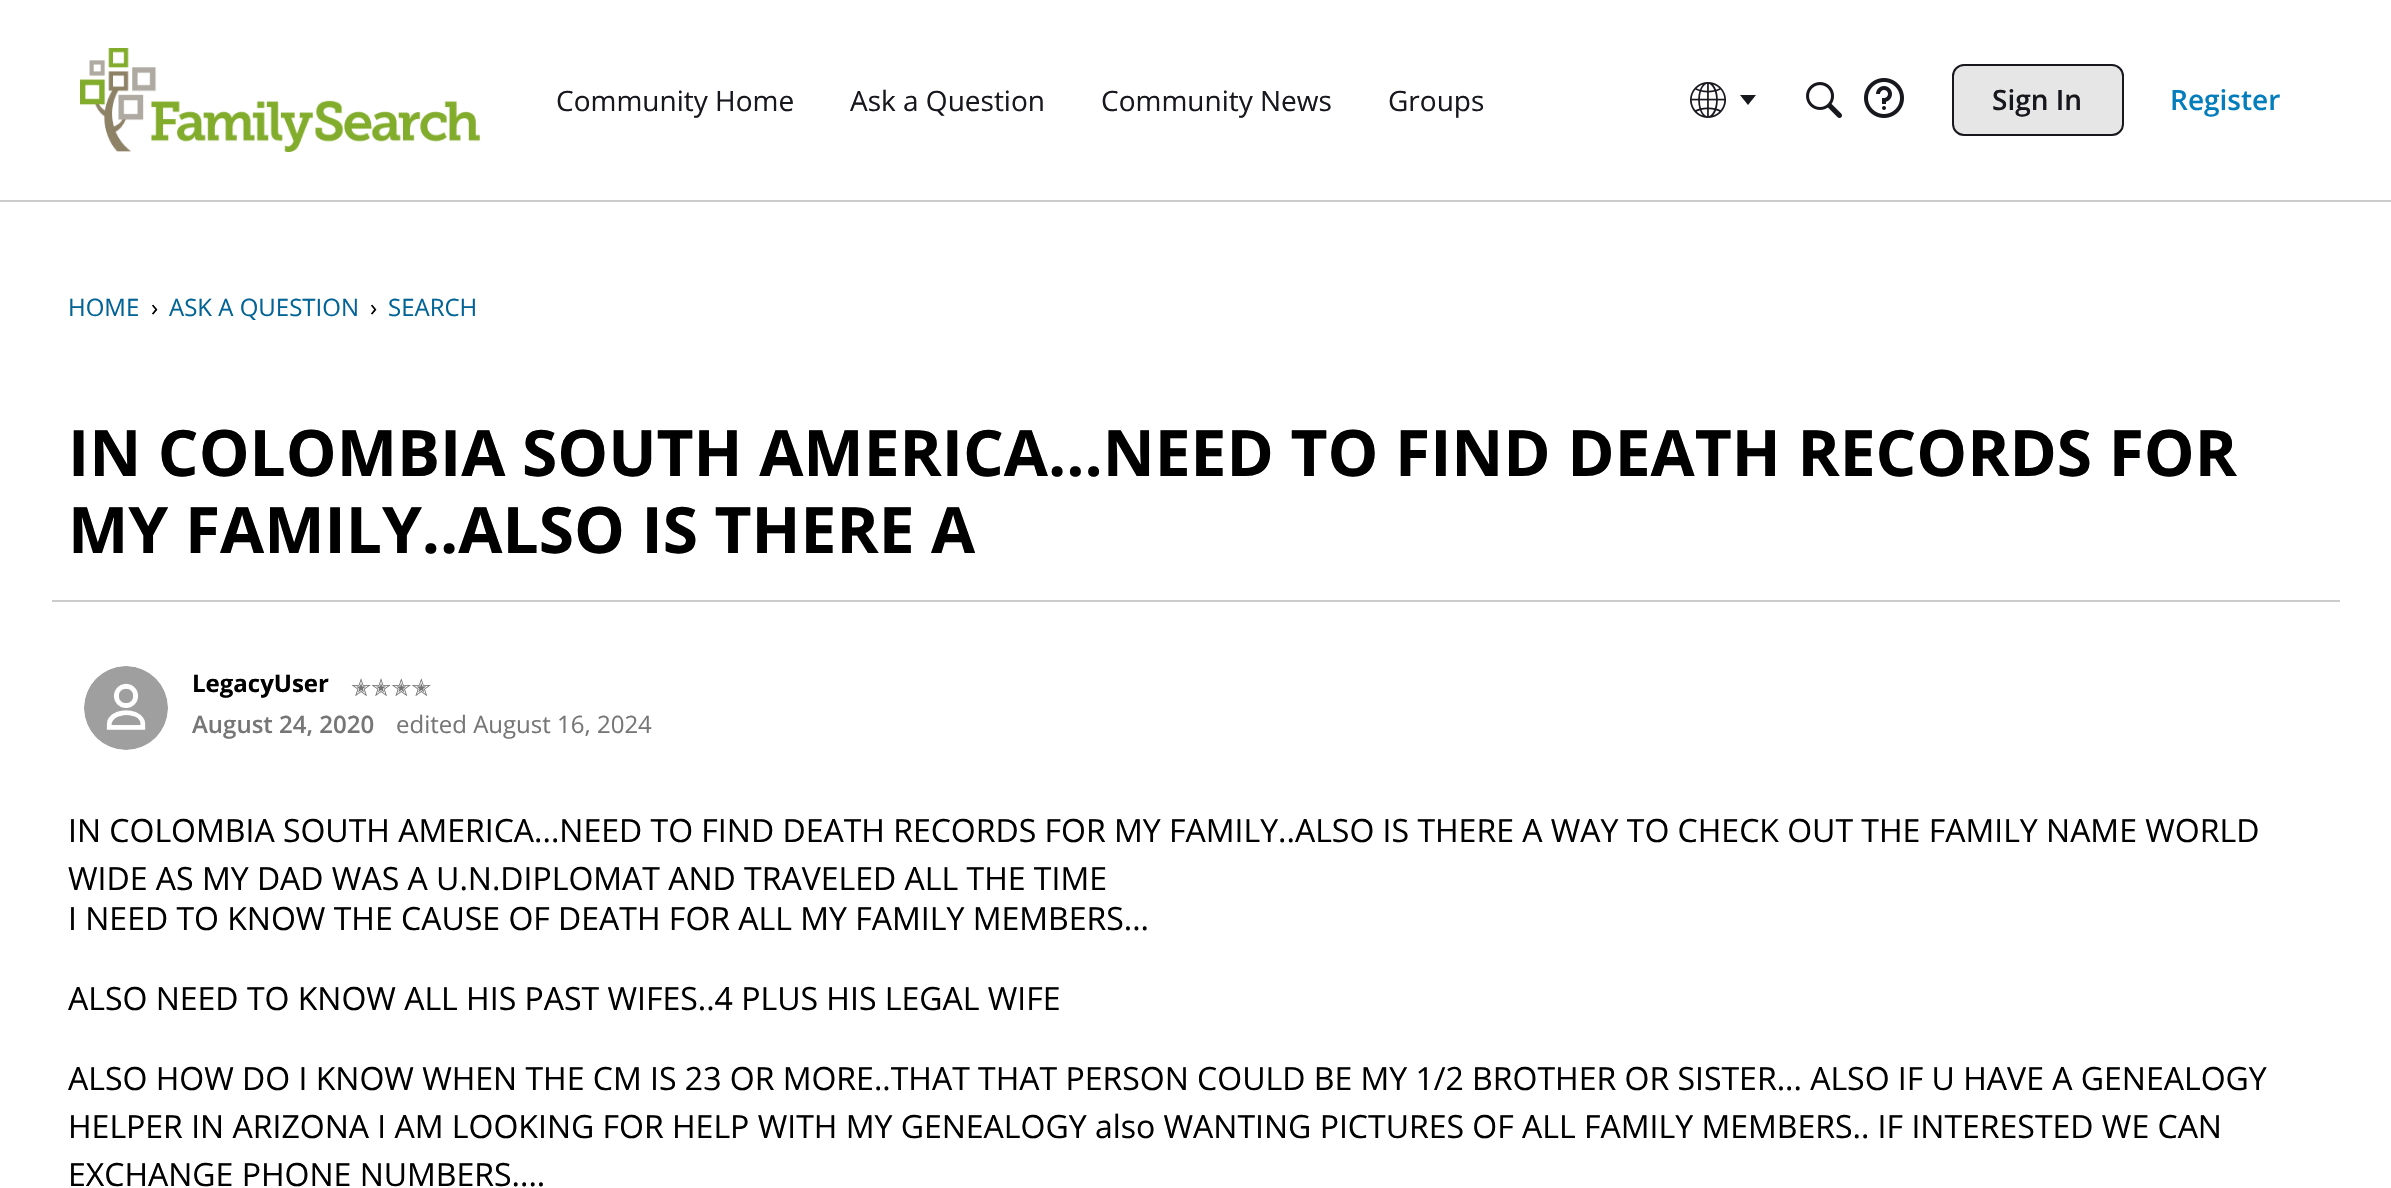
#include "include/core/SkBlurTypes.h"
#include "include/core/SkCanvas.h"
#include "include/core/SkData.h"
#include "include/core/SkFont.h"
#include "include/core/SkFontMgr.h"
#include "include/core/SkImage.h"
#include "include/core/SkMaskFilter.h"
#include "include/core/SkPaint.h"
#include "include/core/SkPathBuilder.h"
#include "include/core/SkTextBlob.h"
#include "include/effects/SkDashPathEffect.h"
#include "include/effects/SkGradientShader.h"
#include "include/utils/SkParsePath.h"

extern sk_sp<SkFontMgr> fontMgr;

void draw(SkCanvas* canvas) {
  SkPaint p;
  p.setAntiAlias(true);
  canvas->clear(SK_ColorWHITE);
  p.setColor(SkColorSetRGB(204, 204, 204));
  canvas->drawRect(SkRect::MakeLTRB(0, 200, 2391, 202), p);
  canvas->drawImageRect(SkImages::DeferredFromEncodedData(SkData::MakeFromFileName("images/1.png")), SkRect::MakeLTRB(80, 48, 480, 152), SkSamplingOptions());
  canvas->drawImageRect(SkImages::DeferredFromEncodedData(SkData::MakeFromFileName("images/2.png")), SkRect::MakeLTRB(1690, 82, 1726, 118), SkSamplingOptions());
  p.setColor(SkColorSetRGB(23, 23, 30));
  canvas->drawPath(SkPathBuilder().moveTo(1740, 95).lineTo(1756, 95).lineTo(1748, 105).close().detach(), p);
  canvas->drawImageRect(SkImages::DeferredFromEncodedData(SkData::MakeFromFileName("images/3.png")), SkRect::MakeLTRB(1806, 82, 1842, 118), SkSamplingOptions());
  canvas->drawImageRect(SkImages::DeferredFromEncodedData(SkData::MakeFromFileName("images/4.png")), SkRect::MakeLTRB(1864, 78, 1904, 118), SkSamplingOptions());
  p.setColor(SkColorSetRGB(230, 230, 230));
  canvas->drawRoundRect(SkRect::MakeLTRB(1953, 65, 2123, 135), 11, 11, p);
  p.setStyle(SkPaint::kStroke_Style);
  p.setStrokeWidth(2);
  p.setColor(SkColorSetRGB(23, 23, 30));
  canvas->drawRoundRect(SkRect::MakeLTRB(1953, 65, 2123, 135), 11, 11, p);
  p.setStyle(SkPaint::kFill_Style);
  p.setColor(SkColorSetRGB(204, 204, 204));
  canvas->drawRect(SkRect::MakeLTRB(52, 600, 2340, 602), p);
  canvas->drawImageRect(SkImages::DeferredFromEncodedData(SkData::MakeFromFileName("images/5.png")), SkRect::MakeLTRB(84, 666, 168, 750), SkSamplingOptions());
  SkFont font1(fontMgr->matchFamilyStyle("Open Sans", SkFontStyle::Normal()), 28);
  font1.setSubpixel(true);
  p.setColor(SkColorSetRGB(23, 23, 30));
  canvas->drawString("Community Home", 556, 111, font1, p);
  canvas->drawString("Ask a Question", 850, 111, font1, p);
  canvas->drawString("Community News", 1101, 111, font1, p);
  canvas->drawString("Groups", 1388, 111, font1, p);
  SkFont font2(fontMgr->matchFamilyStyle("Open Sans", SkFontStyle(600, SkFontStyle::kNormal_Width, SkFontStyle::kUpright_Slant)), 28);
  font2.setSubpixel(true);
  canvas->drawString("Sign In", 1992, 110, font2, p);
  p.setColor(SkColorSetRGB(3, 125, 188));
  canvas->drawString("Register", 2170, 110, font2, p);
  SkFont font3(fontMgr->matchFamilyStyle("Open Sans", SkFontStyle::Normal()), 24);
  font3.setSubpixel(true);
  p.setColor(SkColorSetRGB(2, 100, 150));
  canvas->drawString("HOME", 68, 316, font3, p);
  p.setColor(SK_ColorBLACK);
  canvas->drawString("›", 151, 316, font3, p);
  p.setColor(SkColorSetRGB(2, 100, 150));
  canvas->drawString("ASK A QUESTION", 169, 316, font3, p);
  p.setColor(SK_ColorBLACK);
  canvas->drawString("›", 370, 316, font3, p);
  p.setColor(SkColorSetRGB(2, 100, 150));
  canvas->drawString("SEARCH", 388, 316, font3, p);
  SkFont font4(fontMgr->matchFamilyStyle("Open Sans", SkFontStyle::Bold()), 64);
  font4.setSubpixel(true);
  p.setColor(SK_ColorBLACK);
  canvas->drawString("IN COLOMBIA SOUTH AMERICA...NEED TO FIND DEATH RECORDS FOR", 68, 476, font4, p);
  canvas->drawString("MY FAMILY..ALSO IS THERE A", 68, 553, font4, p);
  SkFont font5(fontMgr->matchFamilyStyle("Open Sans", SkFontStyle::Bold()), 24);
  font5.setSubpixel(true);
  canvas->drawString("LegacyUser", 192, 692, font5, p);
  SkFont font6(fontMgr->matchFamilyStyle("DejaVu Sans", SkFontStyle::Normal()), 24);
  font6.setSubpixel(true);
  p.setColor(SkColorSetRGB(118, 118, 118));
  canvas->drawString("✭✭✭✭", 351, 696, font6, p);
  SkFont font7(fontMgr->matchFamilyStyle("Open Sans", SkFontStyle(600, SkFontStyle::kNormal_Width, SkFontStyle::kUpright_Slant)), 24);
  font7.setSubpixel(true);
  canvas->drawString("August 24, 2020", 192, 733, font7, p);
  canvas->drawString("edited August 16, 2024", 396, 733, font3, p);
  SkFont font8(fontMgr->matchFamilyStyle("Open Sans", SkFontStyle::Normal()), 32);
  font8.setSubpixel(true);
  p.setColor(SK_ColorBLACK);
  canvas->drawString("IN COLOMBIA SOUTH AMERICA...NEED TO FIND DEATH RECORDS FOR MY FAMILY..ALSO IS THERE A WAY TO CHECK OUT THE FAMILY NAME WORLD", 68, 842, font8, p);
  canvas->drawString("WIDE AS MY DAD WAS A U.N.DIPLOMAT AND TRAVELED ALL THE TIME", 68, 890, font8, p);
  canvas->drawString("I NEED TO KNOW THE CAUSE OF DEATH FOR ALL MY FAMILY MEMBERS...", 68, 930, font8, p);
  canvas->drawString("ALSO NEED TO KNOW ALL HIS PAST WIFES..4 PLUS HIS LEGAL WIFE", 68, 1010, font8, p);
  canvas->drawString("ALSO HOW DO I KNOW WHEN THE CM IS 23 OR MORE..THAT THAT PERSON COULD BE MY 1/2 BROTHER OR SISTER... ALSO IF U HAVE A GENEALOGY", 68, 1090, font8, p);
  canvas->drawString("HELPER IN ARIZONA I AM LOOKING FOR HELP WITH MY GENEALOGY also WANTING PICTURES OF ALL FAMILY MEMBERS.. IF INTERESTED WE CAN", 68, 1138, font8, p);
  canvas->drawString("EXCHANGE PHONE NUMBERS....", 68, 1186, font8, p);
}
